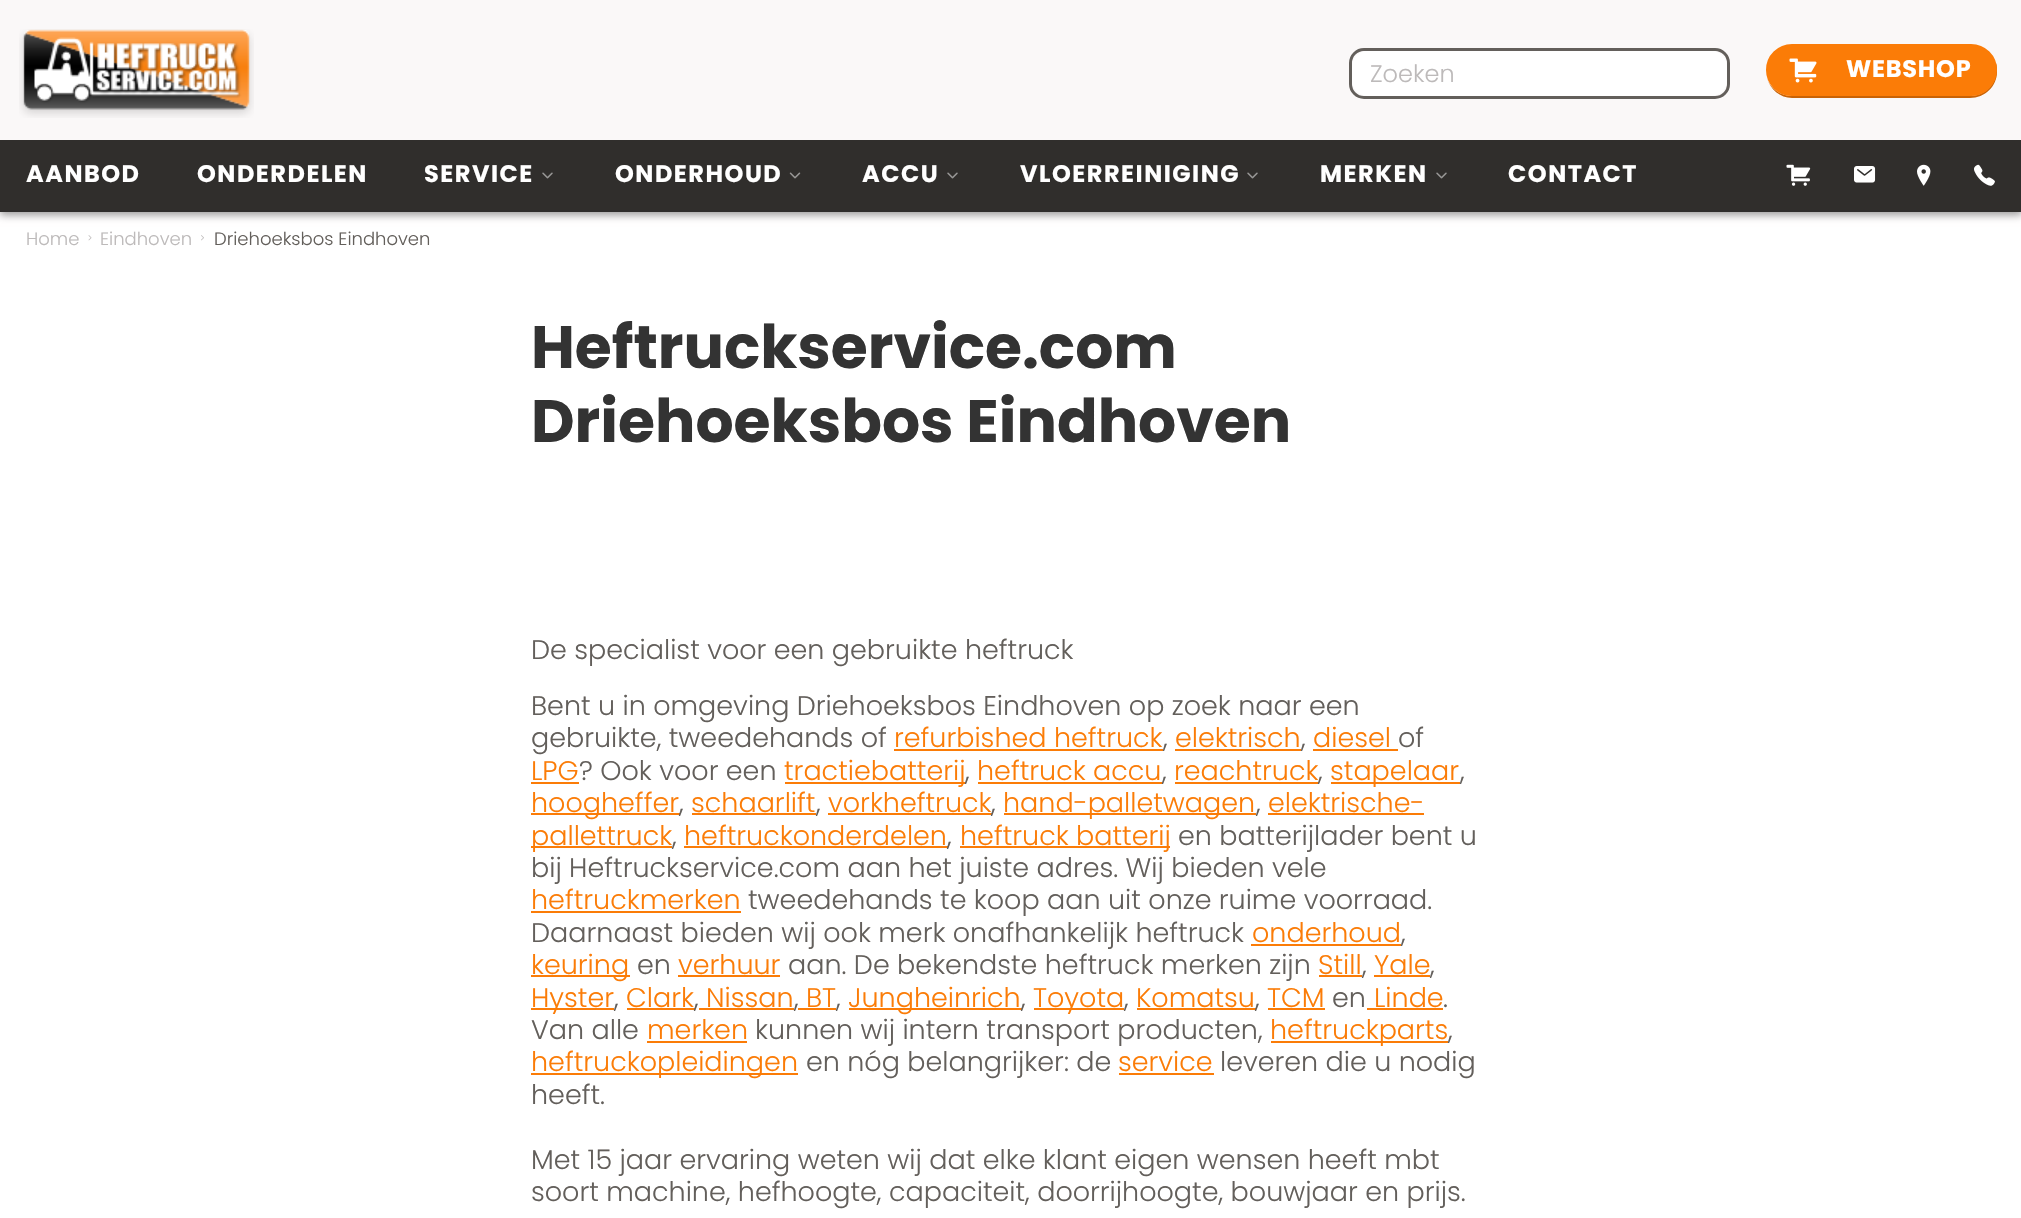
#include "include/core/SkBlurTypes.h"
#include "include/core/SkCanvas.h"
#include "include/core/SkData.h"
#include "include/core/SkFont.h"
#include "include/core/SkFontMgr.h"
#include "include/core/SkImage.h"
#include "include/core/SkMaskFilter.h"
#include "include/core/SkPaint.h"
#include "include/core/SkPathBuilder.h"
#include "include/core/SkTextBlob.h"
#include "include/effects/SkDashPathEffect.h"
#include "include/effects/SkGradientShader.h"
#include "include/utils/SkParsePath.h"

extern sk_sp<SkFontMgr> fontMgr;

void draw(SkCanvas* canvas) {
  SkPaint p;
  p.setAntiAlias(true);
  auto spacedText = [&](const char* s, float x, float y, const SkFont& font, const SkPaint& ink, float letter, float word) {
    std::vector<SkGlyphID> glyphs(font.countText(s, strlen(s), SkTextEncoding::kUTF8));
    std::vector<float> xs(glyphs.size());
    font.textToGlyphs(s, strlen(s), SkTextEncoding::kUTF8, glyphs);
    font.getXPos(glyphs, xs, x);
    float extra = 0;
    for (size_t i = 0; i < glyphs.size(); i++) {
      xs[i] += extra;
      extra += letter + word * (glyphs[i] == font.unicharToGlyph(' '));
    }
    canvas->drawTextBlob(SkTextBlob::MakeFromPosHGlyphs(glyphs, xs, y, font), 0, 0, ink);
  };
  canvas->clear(SK_ColorWHITE);
  p.setColor(SkColorSetARGB(102, 2, 0, 0));
  p.setMaskFilter(SkMaskFilter::MakeBlur(kNormal_SkBlurStyle, 4));
  canvas->drawRect(SkRect::MakeLTRB(0, 3, 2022, 215), p);
  p.setMaskFilter(nullptr);
  p.setColor(SkColorSetRGB(250, 248, 248));
  canvas->drawRect(SkRect::MakeLTRB(0, 0, 2021, 140), p);
  canvas->drawImageRect(SkImages::DeferredFromEncodedData(SkData::MakeFromFileName("images/1.png")), SkRect::MakeLTRB(19, 29, 254, 118), SkSamplingOptions());
  p.setStyle(SkPaint::kStroke_Style);
  p.setStrokeWidth(3);
  p.setColor(SkColorSetRGB(99, 95, 91));
  canvas->drawRoundRect(SkRect::MakeLTRB(1350.5f, 49.5f, 1728.5f, 97.5f), 13.5f, 13.5f, p);
  p.setStyle(SkPaint::kFill_Style);
  p.setColor(SK_ColorWHITE);
  canvas->drawRoundRect(SkRect::MakeLTRB(1352, 51, 1727, 96), 15, 15, p);
  p.setColor(SkColorSetRGB(201, 99, 6));
  canvas->drawPath(SkPathBuilder().moveTo(1767, 78).cubicTo(1770, 89, 1780, 98, 1792, 98).lineTo(1970, 98).cubicTo(1985, 98, 1997, 86, 1997, 72).cubicTo(1997, 69, 1997, 66, 1996, 63).lineTo(1996, 70).cubicTo(1996, 84, 1985, 96, 1970, 96).lineTo(1792, 96).cubicTo(1780, 96, 1770, 88, 1767, 78).close().detach(), p);
  p.setColor(SkColorSetRGB(251, 124, 7));
  canvas->drawRoundRect(SkRect::MakeLTRB(1767.5f, 45.5f, 1995.5f, 94.5f), 24.5f, 24.5f, p);
  p.setStyle(SkPaint::kStroke_Style);
  canvas->drawRoundRect(SkRect::MakeLTRB(1767.5f, 45.5f, 1995.5f, 94.5f), 24.5f, 24.5f, p);
  canvas->drawImageRect(SkImages::DeferredFromEncodedData(SkData::MakeFromFileName("images/2.png")), SkRect::MakeLTRB(1789, 58, 1817, 83), SkSamplingOptions());
  p.setStyle(SkPaint::kFill_Style);
  p.setColor(SkColorSetRGB(48, 46, 44));
  canvas->drawRect(SkRect::MakeLTRB(0, 140, 2021, 212), p);
  canvas->drawImageRect(SkImages::DeferredFromEncodedData(SkData::MakeFromFileName("images/3.png")), SkRect::MakeLTRB(542, 172, 553, 179), SkSamplingOptions());
  canvas->drawImageRect(SkImages::DeferredFromEncodedData(SkData::MakeFromFileName("images/4.png")), SkRect::MakeLTRB(789, 172, 801, 179), SkSamplingOptions());
  canvas->drawImageRect(SkImages::DeferredFromEncodedData(SkData::MakeFromFileName("images/3.png")), SkRect::MakeLTRB(947, 172, 958, 179), SkSamplingOptions());
  canvas->drawImageRect(SkImages::DeferredFromEncodedData(SkData::MakeFromFileName("images/3.png")), SkRect::MakeLTRB(1247, 172, 1258, 179), SkSamplingOptions());
  canvas->drawImageRect(SkImages::DeferredFromEncodedData(SkData::MakeFromFileName("images/3.png")), SkRect::MakeLTRB(1436, 172, 1447, 179), SkSamplingOptions());
  canvas->drawImageRect(SkImages::DeferredFromEncodedData(SkData::MakeFromFileName("images/5.png")), SkRect::MakeLTRB(1786, 164, 1811, 186), SkSamplingOptions());
  canvas->drawImageRect(SkImages::DeferredFromEncodedData(SkData::MakeFromFileName("images/6.png")), SkRect::MakeLTRB(1854, 166, 1876, 183), SkSamplingOptions());
  canvas->drawImageRect(SkImages::DeferredFromEncodedData(SkData::MakeFromFileName("images/7.png")), SkRect::MakeLTRB(1917, 164, 1931, 186), SkSamplingOptions());
  canvas->drawImageRect(SkImages::DeferredFromEncodedData(SkData::MakeFromFileName("images/8.png")), SkRect::MakeLTRB(1974, 164, 1995, 186), SkSamplingOptions());
  canvas->drawImageRect(SkImages::DeferredFromEncodedData(SkData::MakeFromFileName("images/9.png")), SkRect::MakeLTRB(88, 235, 92, 241), SkSamplingOptions());
  canvas->drawImageRect(SkImages::DeferredFromEncodedData(SkData::MakeFromFileName("images/10.png")), SkRect::MakeLTRB(201, 235, 204, 241), SkSamplingOptions());
  p.setColor(SkColorSetRGB(251, 124, 7));
  canvas->drawRect(SkRect::MakeLTRB(894, 749, 1163, 751), p);
  canvas->drawRect(SkRect::MakeLTRB(1175, 749, 1301, 751), p);
  canvas->drawRect(SkRect::MakeLTRB(1313, 749, 1398, 751), p);
  canvas->drawRect(SkRect::MakeLTRB(531, 782, 579, 784), p);
  canvas->drawRect(SkRect::MakeLTRB(785, 782, 966, 784), p);
  canvas->drawRect(SkRect::MakeLTRB(978, 782, 1163, 784), p);
  canvas->drawRect(SkRect::MakeLTRB(1175, 782, 1319, 784), p);
  canvas->drawRect(SkRect::MakeLTRB(1331, 782, 1460, 784), p);
  canvas->drawRect(SkRect::MakeLTRB(531, 813, 680, 815), p);
  canvas->drawRect(SkRect::MakeLTRB(692, 813, 816, 815), p);
  canvas->drawRect(SkRect::MakeLTRB(828, 813, 992, 815), p);
  canvas->drawRect(SkRect::MakeLTRB(1004, 813, 1256, 815), p);
  canvas->drawRect(SkRect::MakeLTRB(1268, 813, 1424, 815), p);
  canvas->drawRect(SkRect::MakeLTRB(531, 846, 672, 848), p);
  canvas->drawRect(SkRect::MakeLTRB(684, 846, 948, 848), p);
  canvas->drawRect(SkRect::MakeLTRB(960, 846, 1170, 848), p);
  canvas->drawRect(SkRect::MakeLTRB(531, 911, 741, 913), p);
  canvas->drawRect(SkRect::MakeLTRB(1251, 944, 1401, 946), p);
  canvas->drawRect(SkRect::MakeLTRB(531, 975, 630, 977), p);
  canvas->drawRect(SkRect::MakeLTRB(678, 975, 780, 977), p);
  canvas->drawRect(SkRect::MakeLTRB(1319, 975, 1362, 977), p);
  canvas->drawRect(SkRect::MakeLTRB(1374, 975, 1430, 977), p);
  canvas->drawRect(SkRect::MakeLTRB(531, 1008, 614, 1010), p);
  canvas->drawRect(SkRect::MakeLTRB(627, 1008, 695, 1010), p);
  canvas->drawRect(SkRect::MakeLTRB(699, 1008, 794, 1010), p);
  canvas->drawRect(SkRect::MakeLTRB(798, 1008, 836, 1010), p);
  canvas->drawRect(SkRect::MakeLTRB(849, 1008, 1022, 1010), p);
  canvas->drawRect(SkRect::MakeLTRB(1034, 1008, 1124, 1010), p);
  canvas->drawRect(SkRect::MakeLTRB(1137, 1008, 1256, 1010), p);
  canvas->drawRect(SkRect::MakeLTRB(1268, 1008, 1325, 1010), p);
  canvas->drawRect(SkRect::MakeLTRB(1367, 1008, 1443, 1010), p);
  canvas->drawRect(SkRect::MakeLTRB(647, 1041, 747, 1043), p);
  canvas->drawRect(SkRect::MakeLTRB(1271, 1041, 1448, 1043), p);
  canvas->drawRect(SkRect::MakeLTRB(531, 1073, 798, 1075), p);
  canvas->drawRect(SkRect::MakeLTRB(1119, 1073, 1214, 1075), p);
  SkFont font1(fontMgr->matchFamilyStyle("Poppins", SkFontStyle(300, SkFontStyle::kNormal_Width, SkFontStyle::kUpright_Slant)), 24);
  font1.setSubpixel(true);
  p.setColor(SkColorSetRGB(189, 186, 186));
  canvas->drawString("Zoeken", 1370, 82, font1, p);
  SkFont font2(fontMgr->matchFamilyStyle("Poppins", SkFontStyle::Bold()), 24);
  font2.setSubpixel(true);
  p.setColor(SK_ColorWHITE);
  spacedText("WEBSHOP", 1846, 77, font2, p, 0.75f, 0);
  spacedText("AANBOD", 26, 182, font2, p, 1.5f, 0);
  spacedText("ONDERDELEN", 197, 182, font2, p, 1.5f, 0);
  spacedText("SERVICE", 424, 182, font2, p, 1.5f, 0);
  spacedText("ONDERHOUD", 615, 182, font2, p, 1.5f, 0);
  spacedText("ACCU", 862, 182, font2, p, 1.5f, 0);
  spacedText("VLOERREINIGING", 1020, 182, font2, p, 1.5f, 0);
  spacedText("MERKEN", 1320, 182, font2, p, 1.5f, 0);
  spacedText("CONTACT", 1508, 182, font2, p, 1.5f, 0);
  SkFont font3(fontMgr->matchFamilyStyle("Poppins", SkFontStyle(300, SkFontStyle::kNormal_Width, SkFontStyle::kUpright_Slant)), 18);
  font3.setSubpixel(true);
  p.setColor(SkColorSetRGB(189, 186, 186));
  canvas->drawString("Home", 26, 245, font3, p);
  canvas->drawString("Eindhoven", 100, 245, font3, p);
  p.setColor(SkColorSetRGB(99, 95, 91));
  canvas->drawString("Driehoeksbos Eindhoven", 214, 245, font3, p);
  SkFont font4(fontMgr->matchFamilyStyle("Poppins", SkFontStyle::Bold()), 60);
  font4.setSubpixel(true);
  p.setColor(SkColorSetRGB(51, 51, 51));
  canvas->drawString("Heftruckservice.com", 531, 368, font4, p);
  canvas->drawString("Driehoeksbos Eindhoven", 531, 442, font4, p);
  SkFont font5(fontMgr->matchFamilyStyle("Poppins", SkFontStyle(300, SkFontStyle::kNormal_Width, SkFontStyle::kUpright_Slant)), 27);
  font5.setSubpixel(true);
  p.setColor(SkColorSetRGB(99, 95, 91));
  canvas->drawString("De specialist voor een gebruikte heftruck", 531, 659, font5, p);
  canvas->drawString("Bent u in omgeving Driehoeksbos Eindhoven op zoek naar een", 531, 715, font5, p);
  canvas->drawString("gebruikte, tweedehands of", 531, 747, font5, p);
  p.setColor(SkColorSetRGB(251, 124, 7));
  canvas->drawString("refurbished heftruck", 894, 747, font5, p);
  p.setColor(SkColorSetRGB(99, 95, 91));
  canvas->drawString(",", 1163, 747, font5, p);
  p.setColor(SkColorSetRGB(251, 124, 7));
  canvas->drawString("elektrisch", 1175, 747, font5, p);
  p.setColor(SkColorSetRGB(99, 95, 91));
  canvas->drawString(",", 1301, 747, font5, p);
  p.setColor(SkColorSetRGB(251, 124, 7));
  canvas->drawString("diesel", 1313, 747, font5, p);
  p.setColor(SkColorSetRGB(99, 95, 91));
  canvas->drawString("of", 1398, 747, font5, p);
  p.setColor(SkColorSetRGB(251, 124, 7));
  canvas->drawString("LPG", 531, 780, font5, p);
  p.setColor(SkColorSetRGB(99, 95, 91));
  canvas->drawString("? Ook voor een", 579, 780, font5, p);
  p.setColor(SkColorSetRGB(251, 124, 7));
  canvas->drawString("tractiebatterij", 784, 780, font5, p);
  p.setColor(SkColorSetRGB(99, 95, 91));
  canvas->drawString(",", 965, 780, font5, p);
  p.setColor(SkColorSetRGB(251, 124, 7));
  canvas->drawString("heftruck accu", 977, 780, font5, p);
  p.setColor(SkColorSetRGB(99, 95, 91));
  canvas->drawString(",", 1162, 780, font5, p);
  p.setColor(SkColorSetRGB(251, 124, 7));
  canvas->drawString("reachtruck", 1174, 780, font5, p);
  p.setColor(SkColorSetRGB(99, 95, 91));
  canvas->drawString(",", 1318, 780, font5, p);
  p.setColor(SkColorSetRGB(251, 124, 7));
  canvas->drawString("stapelaar", 1330, 780, font5, p);
  p.setColor(SkColorSetRGB(99, 95, 91));
  canvas->drawString(",", 1460, 780, font5, p);
  p.setColor(SkColorSetRGB(251, 124, 7));
  canvas->drawString("hoogheffer", 531, 812, font5, p);
  p.setColor(SkColorSetRGB(99, 95, 91));
  canvas->drawString(",", 679, 812, font5, p);
  p.setColor(SkColorSetRGB(251, 124, 7));
  canvas->drawString("schaarlift", 691, 812, font5, p);
  p.setColor(SkColorSetRGB(99, 95, 91));
  canvas->drawString(",", 816, 812, font5, p);
  p.setColor(SkColorSetRGB(251, 124, 7));
  canvas->drawString("vorkheftruck", 828, 812, font5, p);
  p.setColor(SkColorSetRGB(99, 95, 91));
  canvas->drawString(",", 991, 812, font5, p);
  p.setColor(SkColorSetRGB(251, 124, 7));
  canvas->drawString("hand-palletwagen", 1003, 812, font5, p);
  p.setColor(SkColorSetRGB(99, 95, 91));
  canvas->drawString(",", 1256, 812, font5, p);
  p.setColor(SkColorSetRGB(251, 124, 7));
  canvas->drawString("elektrische-", 1268, 812, font5, p);
  canvas->drawString("pallettruck", 531, 845, font5, p);
  p.setColor(SkColorSetRGB(99, 95, 91));
  canvas->drawString(",", 672, 845, font5, p);
  p.setColor(SkColorSetRGB(251, 124, 7));
  canvas->drawString("heftruckonderdelen", 684, 845, font5, p);
  p.setColor(SkColorSetRGB(99, 95, 91));
  canvas->drawString(",", 947, 845, font5, p);
  p.setColor(SkColorSetRGB(251, 124, 7));
  canvas->drawString("heftruck batterij", 960, 845, font5, p);
  p.setColor(SkColorSetRGB(99, 95, 91));
  canvas->drawString("en batterijlader bent u", 1178, 845, font5, p);
  canvas->drawString("bij Heftruckservice.com aan het juiste adres. Wij bieden vele", 531, 877, font5, p);
  p.setColor(SkColorSetRGB(251, 124, 7));
  canvas->drawString("heftruckmerken", 531, 909, font5, p);
  p.setColor(SkColorSetRGB(99, 95, 91));
  canvas->drawString("tweedehands te koop aan uit onze ruime voorraad.", 748, 909, font5, p);
  canvas->drawString("Daarnaast bieden wij ook merk onafhankelijk heftruck", 531, 942, font5, p);
  p.setColor(SkColorSetRGB(251, 124, 7));
  canvas->drawString("onderhoud", 1252, 942, font5, p);
  p.setColor(SkColorSetRGB(99, 95, 91));
  canvas->drawString(",", 1401, 942, font5, p);
  p.setColor(SkColorSetRGB(251, 124, 7));
  canvas->drawString("keuring", 531, 974, font5, p);
  p.setColor(SkColorSetRGB(99, 95, 91));
  canvas->drawString("en", 637, 974, font5, p);
  p.setColor(SkColorSetRGB(251, 124, 7));
  canvas->drawString("verhuur", 678, 974, font5, p);
  p.setColor(SkColorSetRGB(99, 95, 91));
  canvas->drawString("aan. De bekendste heftruck merken zijn", 788, 974, font5, p);
  p.setColor(SkColorSetRGB(251, 124, 7));
  canvas->drawString("Still", 1318, 974, font5, p);
  p.setColor(SkColorSetRGB(99, 95, 91));
  canvas->drawString(",", 1362, 974, font5, p);
  p.setColor(SkColorSetRGB(251, 124, 7));
  canvas->drawString("Yale", 1374, 974, font5, p);
  p.setColor(SkColorSetRGB(99, 95, 91));
  canvas->drawString(",", 1430, 974, font5, p);
  p.setColor(SkColorSetRGB(251, 124, 7));
  canvas->drawString("Hyster", 531, 1007, font5, p);
  p.setColor(SkColorSetRGB(99, 95, 91));
  canvas->drawString(",", 614, 1007, font5, p);
  p.setColor(SkColorSetRGB(251, 124, 7));
  canvas->drawString("Clark", 626, 1007, font5, p);
  p.setColor(SkColorSetRGB(99, 95, 91));
  canvas->drawString(",", 694, 1007, font5, p);
  p.setColor(SkColorSetRGB(251, 124, 7));
  canvas->drawString("Nissan", 706, 1007, font5, p);
  p.setColor(SkColorSetRGB(99, 95, 91));
  canvas->drawString(",", 794, 1007, font5, p);
  p.setColor(SkColorSetRGB(251, 124, 7));
  canvas->drawString("BT", 806, 1007, font5, p);
  p.setColor(SkColorSetRGB(99, 95, 91));
  canvas->drawString(",", 836, 1007, font5, p);
  p.setColor(SkColorSetRGB(251, 124, 7));
  canvas->drawString("Jungheinrich", 848, 1007, font5, p);
  p.setColor(SkColorSetRGB(99, 95, 91));
  canvas->drawString(",", 1021, 1007, font5, p);
  p.setColor(SkColorSetRGB(251, 124, 7));
  canvas->drawString("Toyota", 1033, 1007, font5, p);
  p.setColor(SkColorSetRGB(99, 95, 91));
  canvas->drawString(",", 1124, 1007, font5, p);
  p.setColor(SkColorSetRGB(251, 124, 7));
  canvas->drawString("Komatsu", 1136, 1007, font5, p);
  p.setColor(SkColorSetRGB(99, 95, 91));
  canvas->drawString(",", 1255, 1007, font5, p);
  p.setColor(SkColorSetRGB(251, 124, 7));
  canvas->drawString("TCM", 1267, 1007, font5, p);
  p.setColor(SkColorSetRGB(99, 95, 91));
  canvas->drawString("en", 1332, 1007, font5, p);
  p.setColor(SkColorSetRGB(251, 124, 7));
  canvas->drawString("Linde", 1374, 1007, font5, p);
  p.setColor(SkColorSetRGB(99, 95, 91));
  canvas->drawString(".", 1443, 1007, font5, p);
  canvas->drawString("Van alle", 531, 1039, font5, p);
  p.setColor(SkColorSetRGB(251, 124, 7));
  canvas->drawString("merken", 647, 1039, font5, p);
  p.setColor(SkColorSetRGB(99, 95, 91));
  canvas->drawString("kunnen wij intern transport producten,", 755, 1039, font5, p);
  p.setColor(SkColorSetRGB(251, 124, 7));
  canvas->drawString("heftruckparts", 1270, 1039, font5, p);
  p.setColor(SkColorSetRGB(99, 95, 91));
  canvas->drawString(",", 1448, 1039, font5, p);
  p.setColor(SkColorSetRGB(251, 124, 7));
  canvas->drawString("heftruckopleidingen", 531, 1071, font5, p);
  p.setColor(SkColorSetRGB(99, 95, 91));
  canvas->drawString("en nóg belangrijker: de", 806, 1071, font5, p);
  p.setColor(SkColorSetRGB(251, 124, 7));
  canvas->drawString("service", 1118, 1071, font5, p);
  p.setColor(SkColorSetRGB(99, 95, 91));
  canvas->drawString("leveren die u nodig", 1220, 1071, font5, p);
  canvas->drawString("heeft.", 531, 1104, font5, p);
  canvas->drawString("Met 15 jaar ervaring weten wij dat elke klant eigen wensen heeft mbt", 531, 1169, font5, p);
  canvas->drawString("soort machine, hefhoogte, capaciteit, doorrijhoogte, bouwjaar en prijs.", 531, 1201, font5, p);
}
